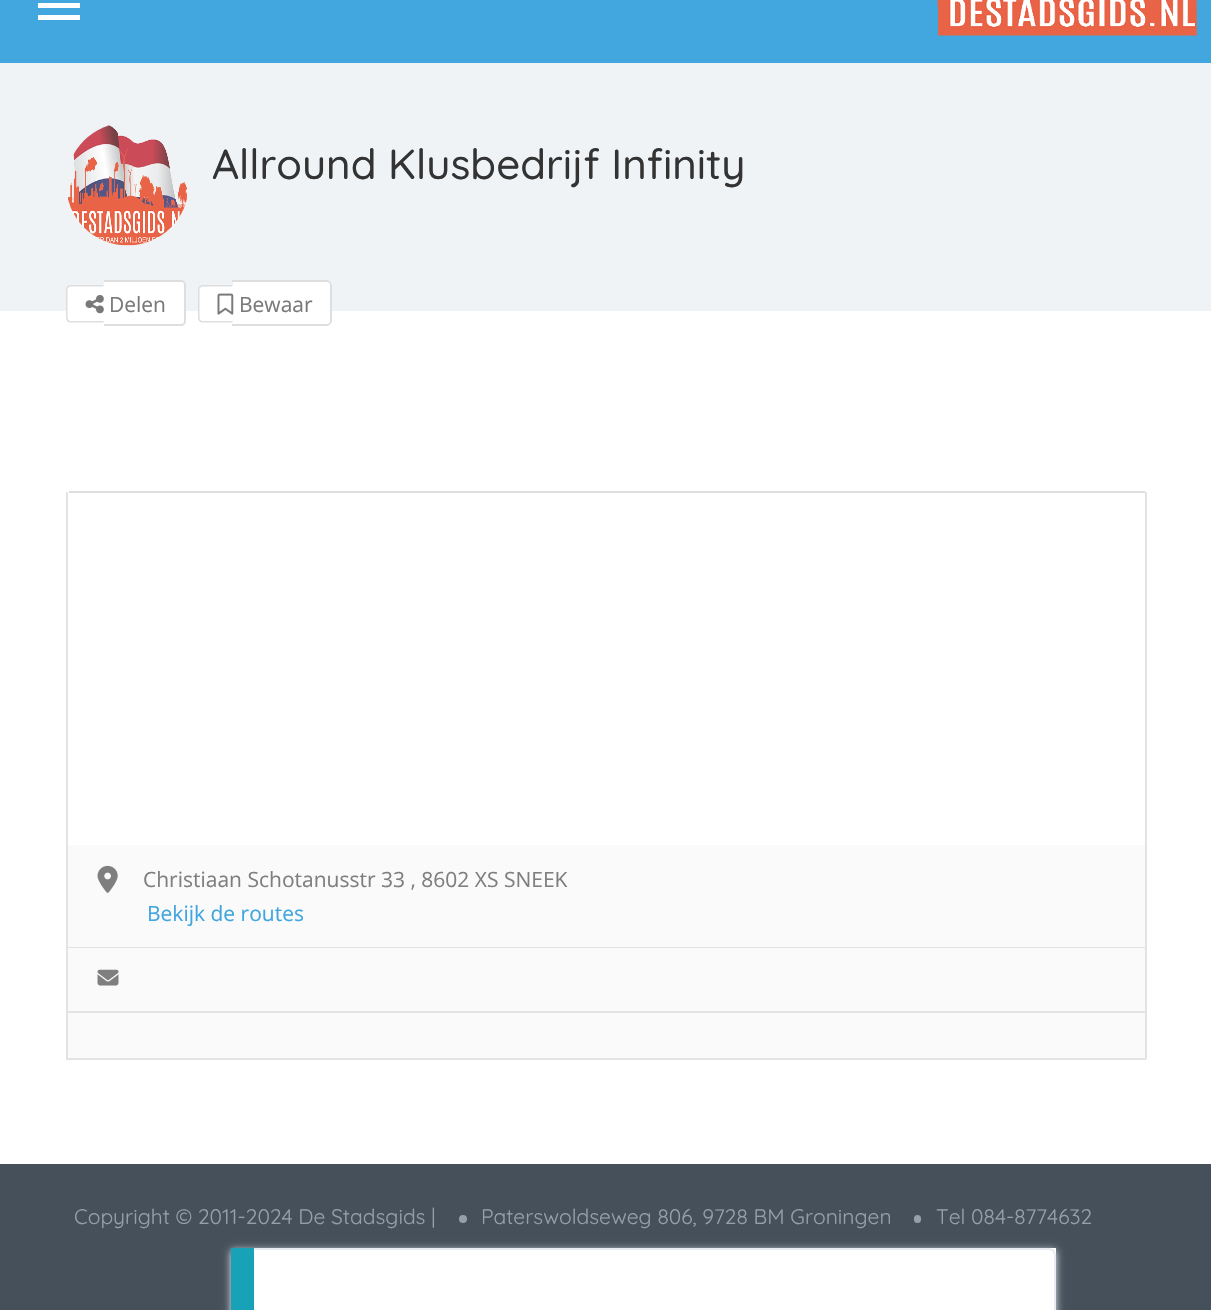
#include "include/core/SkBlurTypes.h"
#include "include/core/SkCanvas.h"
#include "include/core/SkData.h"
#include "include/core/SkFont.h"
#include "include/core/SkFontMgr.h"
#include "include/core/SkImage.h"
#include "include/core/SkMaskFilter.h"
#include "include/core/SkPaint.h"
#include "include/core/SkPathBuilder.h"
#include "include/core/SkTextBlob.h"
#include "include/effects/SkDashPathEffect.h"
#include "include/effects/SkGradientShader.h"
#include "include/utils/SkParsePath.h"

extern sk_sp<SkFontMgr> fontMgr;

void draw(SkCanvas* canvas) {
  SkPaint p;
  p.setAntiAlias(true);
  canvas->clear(SK_ColorWHITE);
  p.setColor(SkColorSetRGB(66, 167, 223));
  canvas->drawRect(SkRect::MakeLTRB(0, 0, 1211, 63), p);
  p.setColor(SK_ColorWHITE);
  canvas->drawRect(SkRect::MakeLTRB(38, 3, 80, 8), p);
  canvas->drawRect(SkRect::MakeLTRB(38, 15, 80, 20), p);
  canvas->drawImageRect(SkImages::DeferredFromEncodedData(SkData::MakeFromFileName("images/1.png")), SkRect::MakeLTRB(937, 0, 1197, 36), SkSamplingOptions());
  p.setColor(SkColorSetRGB(240, 243, 246));
  canvas->drawRect(SkRect::MakeLTRB(0, 63, 1211, 311), p);
  canvas->drawImageRect(SkImages::DeferredFromEncodedData(SkData::MakeFromFileName("images/2.png")), SkRect::MakeLTRB(68, 125, 187, 246), SkSamplingOptions());
  p.setColor(SK_ColorWHITE);
  canvas->drawPath(SkPathBuilder().moveTo(71, 285).lineTo(104, 285).lineTo(104, 323).lineTo(71, 323).cubicTo(68, 323, 66, 321, 66, 318).lineTo(66, 290).cubicTo(66, 287, 68, 285, 71, 285).close().detach(), p);
  p.setColor(SkColorSetRGB(222, 222, 222));
  canvas->drawPath(SkPathBuilder(SkPathFillType::kEvenOdd).moveTo(70.5f, 285).lineTo(103.5f, 285).lineTo(103.5f, 322.5f).lineTo(70.5f, 322.5f).cubicTo(68, 322.5f, 66, 320.5f, 66, 318).lineTo(66, 289.5f).cubicTo(66, 287, 68, 285, 70.5f, 285).close().moveTo(70.5f, 286.5f).lineTo(103.5f, 286.5f).lineTo(103.5f, 321).lineTo(70.5f, 321).cubicTo(69, 321, 67.5f, 319.5f, 67.5f, 318).lineTo(67.5f, 289.5f).cubicTo(67.5f, 288, 69, 286.5f, 70.5f, 286.5f).close().detach(), p);
  p.setColor(SK_ColorWHITE);
  canvas->drawPath(SkPathBuilder().moveTo(104, 281).lineTo(181, 281).cubicTo(184, 281, 186, 283, 186, 286).lineTo(186, 321).cubicTo(186, 324, 184, 326, 181, 326).lineTo(104, 326).close().detach(), p);
  p.setColor(SkColorSetRGB(222, 222, 222));
  canvas->drawPath(SkPathBuilder(SkPathFillType::kEvenOdd).moveTo(104, 280).lineTo(182, 280).cubicTo(184, 280, 186, 283, 186, 285).lineTo(186, 321).cubicTo(186, 323, 184, 326, 182, 326).lineTo(104, 326).close().moveTo(104, 282).lineTo(182, 282).cubicTo(183, 282, 184, 283, 184, 285).lineTo(184, 321).cubicTo(184, 323, 183, 324, 182, 324).lineTo(104, 324).close().detach(), p);
  canvas->drawImageRect(SkImages::DeferredFromEncodedData(SkData::MakeFromFileName("images/3.png")), SkRect::MakeLTRB(85, 295, 104, 314), SkSamplingOptions());
  p.setColor(SK_ColorWHITE);
  canvas->drawPath(SkPathBuilder().moveTo(203, 285).lineTo(233, 285).lineTo(233, 323).lineTo(203, 323).cubicTo(200, 323, 198, 321, 198, 318).lineTo(198, 290).cubicTo(198, 287, 200, 285, 203, 285).close().detach(), p);
  p.setColor(SkColorSetRGB(222, 222, 222));
  canvas->drawPath(SkPathBuilder(SkPathFillType::kEvenOdd).moveTo(202.5f, 285).lineTo(232.5f, 285).lineTo(232.5f, 322.5f).lineTo(202.5f, 322.5f).cubicTo(200, 322.5f, 198, 320.5f, 198, 318).lineTo(198, 289.5f).cubicTo(198, 287, 200, 285, 202.5f, 285).close().moveTo(202.5f, 286.5f).lineTo(232.5f, 286.5f).lineTo(232.5f, 321).lineTo(202.5f, 321).cubicTo(201, 321, 199.5f, 319.5f, 199.5f, 318).lineTo(199.5f, 289.5f).cubicTo(199.5f, 288, 201, 286.5f, 202.5f, 286.5f).close().detach(), p);
  p.setColor(SK_ColorWHITE);
  canvas->drawPath(SkPathBuilder().moveTo(233, 281).lineTo(327, 281).cubicTo(330, 281, 332, 283, 332, 286).lineTo(332, 321).cubicTo(332, 324, 330, 326, 327, 326).lineTo(233, 326).close().detach(), p);
  p.setColor(SkColorSetRGB(222, 222, 222));
  canvas->drawPath(SkPathBuilder(SkPathFillType::kEvenOdd).moveTo(232, 280).lineTo(327, 280).cubicTo(329, 280, 332, 283, 332, 285).lineTo(332, 321).cubicTo(332, 323, 329, 326, 327, 326).lineTo(232, 326).close().moveTo(232, 282).lineTo(327, 282).cubicTo(329, 282, 330, 283, 330, 285).lineTo(330, 321).cubicTo(330, 323, 329, 324, 327, 324).lineTo(232, 324).close().detach(), p);
  canvas->drawImageRect(SkImages::DeferredFromEncodedData(SkData::MakeFromFileName("images/4.png")), SkRect::MakeLTRB(217, 293, 234, 315), SkSamplingOptions());
  canvas->drawRect(SkRect::MakeLTRB(69, 491, 1145, 493), p);
  p.setColor(SkColorSetRGB(227, 227, 227));
  canvas->drawRect(SkRect::MakeLTRB(1145, 492, 1147, 1059), p);
  canvas->drawRect(SkRect::MakeLTRB(66, 1011, 1146, 1013), p);
  canvas->drawRect(SkRect::MakeLTRB(66, 492, 68, 1013), p);
  p.setColor(SkColorSetRGB(250, 250, 250));
  canvas->drawRect(SkRect::MakeLTRB(68, 845, 1145, 947), p);
  p.setColor(SkColorSetRGB(227, 227, 227));
  canvas->drawRect(SkRect::MakeLTRB(68, 947, 1145, 948), p);
  canvas->drawImageRect(SkImages::DeferredFromEncodedData(SkData::MakeFromFileName("images/5.png")), SkRect::MakeLTRB(97, 865, 118, 893), SkSamplingOptions());
  p.setColor(SkColorSetRGB(250, 250, 250));
  canvas->drawRect(SkRect::MakeLTRB(68, 948, 1145, 1011), p);
  canvas->drawImageRect(SkImages::DeferredFromEncodedData(SkData::MakeFromFileName("images/6.png")), SkRect::MakeLTRB(97, 969, 119, 986), SkSamplingOptions());
  canvas->drawRect(SkRect::MakeLTRB(68, 1013, 1145, 1058), p);
  p.setColor(SkColorSetRGB(227, 227, 227));
  canvas->drawRect(SkRect::MakeLTRB(66, 1058, 1146, 1060), p);
  canvas->drawRect(SkRect::MakeLTRB(66, 1013, 68, 1059), p);
  p.setColor(SkColorSetRGB(69, 80, 91));
  canvas->drawRect(SkRect::MakeLTRB(0, 1164, 1211, 1310), p);
  p.setColor(SkColorSetRGB(150, 160, 169));
  canvas->drawCircle(463, 1219, 4, p);
  canvas->drawRoundRect(SkRect::MakeLTRB(914, 1215, 921, 1223), 3.5f, 3.5f, p);
  p.setColor(SkColorSetRGB(234, 236, 238));
  p.setMaskFilter(SkMaskFilter::MakeBlur(kNormal_SkBlurStyle, 4));
  canvas->drawRect(SkRect::MakeLTRB(231, 1250, 1056, 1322), p);
  p.setMaskFilter(nullptr);
  p.setColor(SK_ColorWHITE);
  canvas->drawRect(SkRect::MakeLTRB(254, 1248, 1056, 1310), p);
  p.setColor(SkColorSetRGB(23, 162, 184));
  canvas->drawRect(SkRect::MakeLTRB(231, 1248, 254, 1310), p);
  p.setColor(SkColorSetRGB(233, 235, 242));
  canvas->drawPath(SkPathBuilder(SkPathFillType::kEvenOdd).moveTo(254, 1248).lineTo(1048, 1248).cubicTo(1053, 1248, 1056, 1251, 1056, 1256).lineTo(1056, 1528).cubicTo(1056, 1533, 1053, 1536, 1048, 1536).lineTo(254, 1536).close().moveTo(254, 1250).lineTo(1048, 1250).cubicTo(1052, 1250, 1054, 1252, 1054, 1256).lineTo(1054, 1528).cubicTo(1054, 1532, 1052, 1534, 1048, 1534).lineTo(254, 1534).close().detach(), p);
  SkFont font1(fontMgr->matchFamilyStyle("Quicksand", SkFontStyle(500, SkFontStyle::kNormal_Width, SkFontStyle::kUpright_Slant)), 42);
  font1.setSubpixel(true);
  p.setColor(SkColorSetRGB(51, 51, 51));
  canvas->drawString("Allround Klusbedrijf Infinity", 212, 179, font1, p);
  SkFont font2(fontMgr->matchFamilyStyle("Open Sans", SkFontStyle::Normal()), 21);
  font2.setSubpixel(true);
  p.setColor(SkColorSetRGB(121, 121, 121));
  canvas->drawString("Delen", 109, 312, font2, p);
  canvas->drawString("Bewaar", 239, 312, font2, p);
  p.setColor(SkColorSetRGB(127, 127, 127));
  canvas->drawString("Christiaan Schotanusstr 33 , 8602 XS SNEEK", 143, 887, font2, p);
  p.setColor(SkColorSetRGB(65, 166, 223));
  canvas->drawString("Bekijk de routes", 147, 921, font2, p);
  SkFont font3(fontMgr->matchFamilyStyle("Quicksand", SkFontStyle::Normal()), 21);
  font3.setSubpixel(true);
  p.setColor(SkColorSetRGB(150, 160, 169));
  canvas->drawString("Copyright © 2011-2024 De Stadsgids |", 74, 1224, font3, p);
  canvas->drawString("Paterswoldseweg 806, 9728 BM Groningen", 481, 1224, font3, p);
  canvas->drawString("Tel 084-8774632", 936, 1224, font3, p);
}
